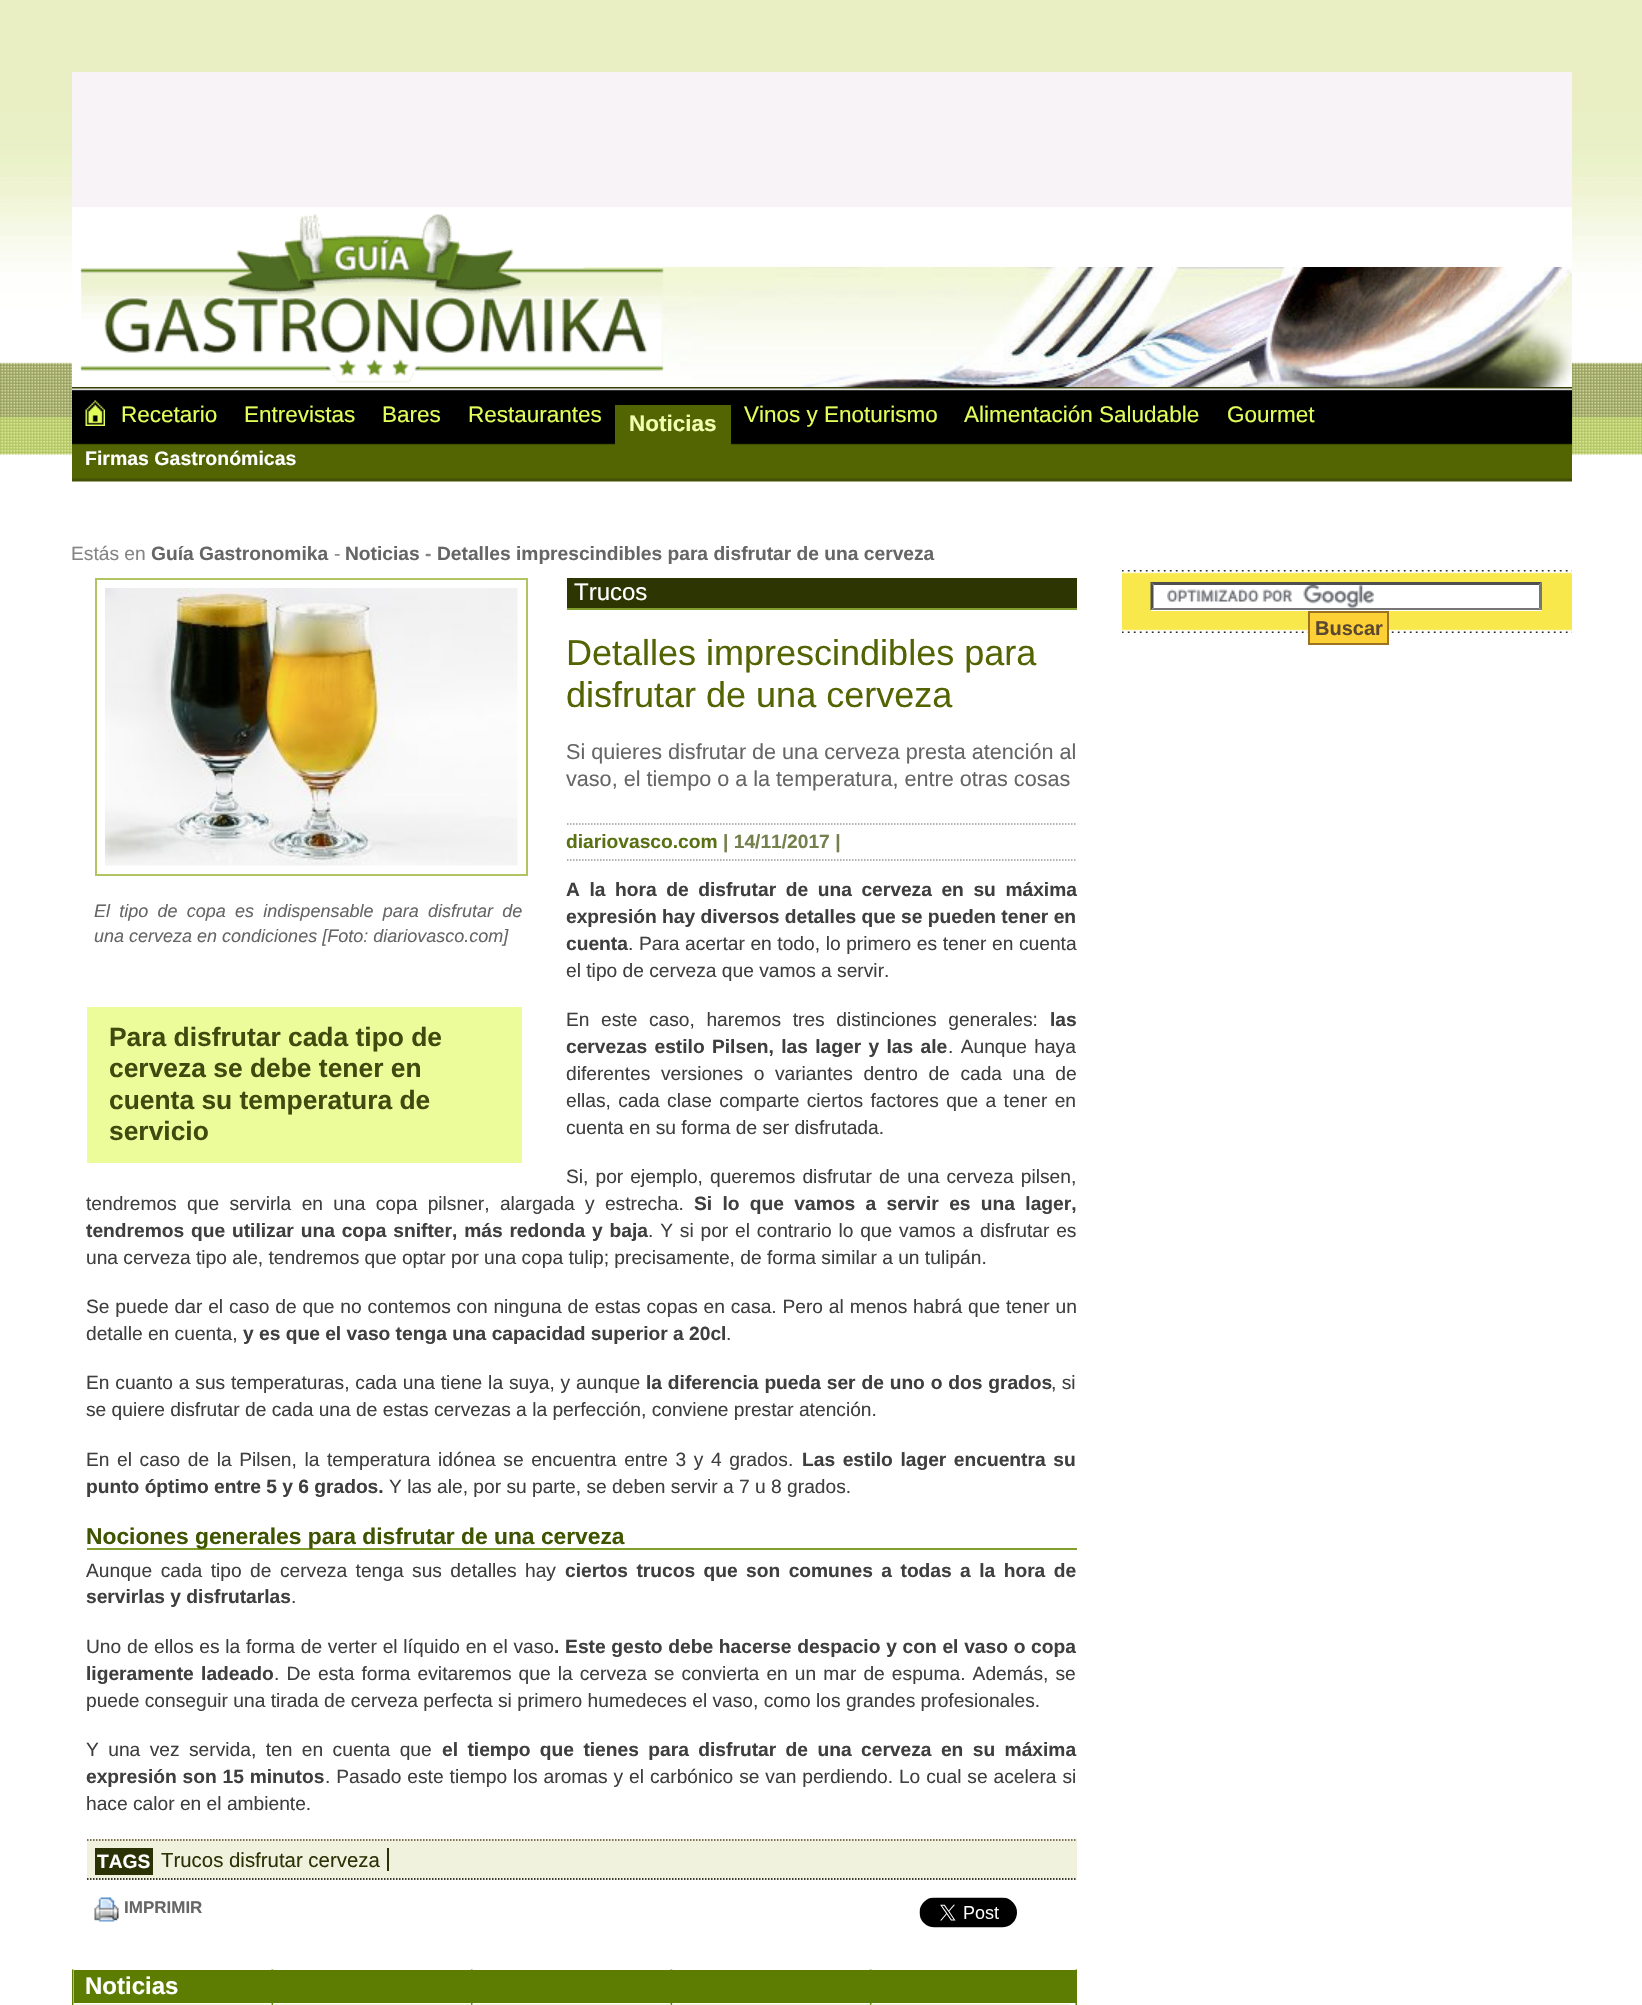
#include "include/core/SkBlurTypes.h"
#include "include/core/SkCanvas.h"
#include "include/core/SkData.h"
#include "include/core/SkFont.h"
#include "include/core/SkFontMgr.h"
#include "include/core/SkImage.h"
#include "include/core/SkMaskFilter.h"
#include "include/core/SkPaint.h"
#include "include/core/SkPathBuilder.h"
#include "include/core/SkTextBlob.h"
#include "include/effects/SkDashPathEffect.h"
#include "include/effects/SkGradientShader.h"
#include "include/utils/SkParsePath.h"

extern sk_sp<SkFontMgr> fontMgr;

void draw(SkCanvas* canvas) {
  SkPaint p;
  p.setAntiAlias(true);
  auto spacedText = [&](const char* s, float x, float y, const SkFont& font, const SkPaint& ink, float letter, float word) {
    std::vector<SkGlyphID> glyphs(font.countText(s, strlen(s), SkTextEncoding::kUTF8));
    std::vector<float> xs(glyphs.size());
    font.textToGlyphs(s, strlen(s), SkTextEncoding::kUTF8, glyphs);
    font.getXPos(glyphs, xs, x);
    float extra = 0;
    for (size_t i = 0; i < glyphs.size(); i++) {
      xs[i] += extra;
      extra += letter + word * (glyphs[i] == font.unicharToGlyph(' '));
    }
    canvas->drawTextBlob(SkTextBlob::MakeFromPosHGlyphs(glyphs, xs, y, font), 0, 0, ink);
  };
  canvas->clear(SK_ColorWHITE);
  canvas->drawImageRect(SkImages::DeferredFromEncodedData(SkData::MakeFromFileName("images/1.png")), SkRect::MakeLTRB(0, 0, 1642, 455), SkSamplingOptions());
  p.setColor(SkColorSetRGB(247, 243, 247));
  canvas->drawRect(SkRect::MakeLTRB(72, 72, 1572, 207), p);
  p.setColor(SK_ColorWHITE);
  canvas->drawRect(SkRect::MakeLTRB(72, 207, 1572, 455), p);
  canvas->drawImageRect(SkImages::DeferredFromEncodedData(SkData::MakeFromFileName("images/2.png")), SkRect::MakeLTRB(583, 267, 1572, 387), SkSamplingOptions());
  canvas->drawImageRect(SkImages::DeferredFromEncodedData(SkData::MakeFromFileName("images/3.png")), SkRect::MakeLTRB(80, 214, 664, 383), SkSamplingOptions());
  canvas->drawImageRect(SkImages::DeferredFromEncodedData(SkData::MakeFromFileName("images/4.png")), SkRect::MakeLTRB(72, 387, 1572, 482), SkSamplingOptions());
  canvas->drawImageRect(SkImages::DeferredFromEncodedData(SkData::MakeFromFileName("images/5.png")), SkRect::MakeLTRB(85, 400, 105, 426), SkSamplingOptions());
  p.setColor(SkColorSetRGB(83, 100, 3));
  canvas->drawRect(SkRect::MakeLTRB(615, 405, 731, 445), p);
  p.setColor(SkColorSetRGB(45, 54, 3));
  canvas->drawRect(SkRect::MakeLTRB(567, 578, 1077, 608), p);
  p.setColor(SkColorSetRGB(130, 158, 44));
  canvas->drawRect(SkRect::MakeLTRB(567, 608, 1077, 610), p);
  p.setStyle(SkPaint::kStroke_Style);
  p.setStrokeWidth(1.5f);
  p.setColor(SkColorSetRGB(153, 153, 153));
  p.setPathEffect(SkDashPathEffect::Make({{1.5f, 1.5f}}, 0));
  canvas->drawPath(SkPathBuilder().moveTo(87, 824).lineTo(1077, 824).detach(), p);
  p.setPathEffect(nullptr);
  p.setPathEffect(SkDashPathEffect::Make({{1.5f, 1.5f}}, 0));
  canvas->drawPath(SkPathBuilder().moveTo(87, 860).lineTo(1077, 860).detach(), p);
  p.setPathEffect(nullptr);
  p.setStyle(SkPaint::kFill_Style);
  p.setColor(SkColorSetRGB(236, 252, 155));
  canvas->drawRect(SkRect::MakeLTRB(87, 1007, 522, 1163), p);
  p.setColor(SkColorSetRGB(130, 158, 44));
  canvas->drawRect(SkRect::MakeLTRB(87, 1548, 1077, 1550), p);
  p.setColor(SK_ColorWHITE);
  canvas->drawRect(SkRect::MakeLTRB(87, 823, 566, 861), p);
  p.setStyle(SkPaint::kStroke_Style);
  p.setStrokeWidth(2);
  p.setColor(SkColorSetRGB(176, 196, 97));
  canvas->drawRect(SkRect::MakeLTRB(96, 579, 527, 875), p);
  canvas->drawImageRect(SkImages::DeferredFromEncodedData(SkData::MakeFromFileName("images/6.png")), SkRect::MakeLTRB(105, 588, 518, 866), SkSamplingOptions());
  p.setStyle(SkPaint::kFill_Style);
  p.setColor(SkColorSetRGB(241, 242, 221));
  canvas->drawRect(SkRect::MakeLTRB(87, 1839, 1077, 1880), p);
  p.setStyle(SkPaint::kStroke_Style);
  p.setStrokeWidth(1.5f);
  p.setColor(SkColorSetRGB(92, 72, 48));
  p.setPathEffect(SkDashPathEffect::Make({{1.5f, 1.5f}}, 0));
  canvas->drawPath(SkPathBuilder().moveTo(87, 1840).lineTo(1077, 1840).detach(), p);
  p.setPathEffect(nullptr);
  p.setColor(SK_ColorBLACK);
  p.setPathEffect(SkDashPathEffect::Make({{1.5f, 1.5f}}, 0));
  canvas->drawPath(SkPathBuilder().moveTo(87, 1879).lineTo(1077, 1879).detach(), p);
  p.setPathEffect(nullptr);
  p.setStyle(SkPaint::kFill_Style);
  p.setColor(SkColorSetRGB(42, 50, 6));
  canvas->drawRect(SkRect::MakeLTRB(95, 1848, 153, 1875), p);
  canvas->drawRect(SkRect::MakeLTRB(387, 1848, 389, 1871), p);
  canvas->drawImageRect(SkImages::DeferredFromEncodedData(SkData::MakeFromFileName("images/7.png")), SkRect::MakeLTRB(94, 1897, 119, 1922), SkSamplingOptions());
  canvas->drawImageRect(SkImages::DeferredFromEncodedData(SkData::MakeFromFileName("images/8.png")), SkRect::MakeLTRB(919, 1897, 1017, 1928), SkSamplingOptions());
  canvas->drawImageRect(SkImages::DeferredFromEncodedData(SkData::MakeFromFileName("images/9.png")), SkRect::MakeLTRB(72, 1969, 1077, 2005), SkSamplingOptions());
  p.setColor(SkColorSetRGB(92, 125, 2));
  canvas->drawRect(SkRect::MakeLTRB(74, 1970, 1076, 2003), p);
  canvas->drawImageRect(SkImages::DeferredFromEncodedData(SkData::MakeFromFileName("images/10.png")), SkRect::MakeLTRB(73, 2004, 272, 2005), SkSamplingOptions());
  p.setColor(SkColorSetRGB(241, 245, 218));
  canvas->drawRect(SkRect::MakeLTRB(273, 2004, 471, 2005), p);
  canvas->drawImageRect(SkImages::DeferredFromEncodedData(SkData::MakeFromFileName("images/10.png")), SkRect::MakeLTRB(472, 2004, 671, 2005), SkSamplingOptions());
  canvas->drawRect(SkRect::MakeLTRB(672, 2004, 870, 2005), p);
  canvas->drawImageRect(SkImages::DeferredFromEncodedData(SkData::MakeFromFileName("images/11.png")), SkRect::MakeLTRB(871, 2004, 1070, 2005), SkSamplingOptions());
  canvas->drawImageRect(SkImages::DeferredFromEncodedData(SkData::MakeFromFileName("images/12.png")), SkRect::MakeLTRB(1122, 570, 1572, 633), SkSamplingOptions());
  p.setColor(SK_ColorWHITE);
  canvas->drawRect(SkRect::MakeLTRB(1151, 582, 1542, 611), p);
  canvas->drawImageRect(SkImages::DeferredFromEncodedData(SkData::MakeFromFileName("images/13.png")), SkRect::MakeLTRB(1167, 585, 1374, 608), SkSamplingOptions());
  p.setColor(SkColorSetRGB(79, 79, 79));
  canvas->drawPath(SkPathBuilder().moveTo(1150, 582).lineTo(1542, 582).lineTo(1539, 585).lineTo(1154, 585).close().detach(), p);
  p.setColor(SkColorSetRGB(118, 118, 118));
  canvas->drawPath(SkPathBuilder().moveTo(1542, 582).lineTo(1542, 610.5f).lineTo(1539, 607.5f).lineTo(1539, 585).close().detach(), p);
  canvas->drawPath(SkPathBuilder().moveTo(1542, 610).lineTo(1150, 610).lineTo(1154, 608).lineTo(1539, 608).close().detach(), p);
  p.setColor(SkColorSetRGB(79, 79, 79));
  canvas->drawPath(SkPathBuilder().moveTo(1150.5f, 610.5f).lineTo(1150.5f, 582).lineTo(1153.5f, 585).lineTo(1153.5f, 607.5f).close().detach(), p);
  p.setColor(SkColorSetRGB(253, 209, 54));
  canvas->drawRect(SkRect::MakeLTRB(1309, 612, 1388, 644), p);
  p.setStyle(SkPaint::kStroke_Style);
  p.setStrokeWidth(2);
  p.setColor(SkColorSetRGB(156, 115, 33));
  canvas->drawRect(SkRect::MakeLTRB(1309, 612, 1388, 644), p);
  SkFont font1(fontMgr->matchFamilyStyle("Liberation Sans", SkFontStyle::Normal()), 22.5f);
  font1.setSubpixel(true);
  p.setStyle(SkPaint::kFill_Style);
  p.setColor(SkColorSetRGB(225, 254, 89));
  canvas->drawString("Recetario", 121, 422, font1, p);
  canvas->drawString("Entrevistas", 244, 422, font1, p);
  canvas->drawString("Bares", 382, 422, font1, p);
  canvas->drawString("Restaurantes", 468, 422, font1, p);
  canvas->drawString("Vinos y Enoturismo", 744, 422, font1, p);
  canvas->drawString("Alimentación Saludable", 964, 422, font1, p);
  canvas->drawString("Gourmet", 1227, 422, font1, p);
  SkFont font2(fontMgr->matchFamilyStyle("Liberation Sans", SkFontStyle::Bold()), 22.5f);
  font2.setSubpixel(true);
  p.setColor(SkColorSetRGB(241, 255, 174));
  canvas->drawString("Noticias", 629, 431, font2, p);
  SkFont font3(fontMgr->matchFamilyStyle("Liberation Sans", SkFontStyle::Bold()), 19.5f);
  font3.setSubpixel(true);
  p.setColor(SK_ColorWHITE);
  canvas->drawString("Firmas Gastronómicas", 85, 465, font3, p);
  SkFont font4(fontMgr->matchFamilyStyle("Liberation Sans", SkFontStyle::Normal()), 19.2f);
  font4.setSubpixel(true);
  p.setColor(SkColorSetRGB(133, 133, 133));
  canvas->drawString("Estás en", 71, 560, font4, p);
  SkFont font5(fontMgr->matchFamilyStyle("Liberation Sans", SkFontStyle::Bold()), 19.2f);
  font5.setSubpixel(true);
  p.setColor(SkColorSetRGB(102, 102, 102));
  canvas->drawString("Guía Gastronomika", 151, 560, font5, p);
  p.setColor(SkColorSetRGB(133, 133, 133));
  canvas->drawString("-", 334, 560, font4, p);
  p.setColor(SkColorSetRGB(102, 102, 102));
  canvas->drawString("Noticias", 345, 560, font5, p);
  p.setColor(SkColorSetRGB(133, 133, 133));
  canvas->drawString("-", 425, 560, font5, p);
  p.setColor(SkColorSetRGB(102, 102, 102));
  canvas->drawString("Detalles imprescindibles para disfrutar de una cerveza", 437, 560, font5, p);
  SkFont font6(fontMgr->matchFamilyStyle("Liberation Sans", SkFontStyle::Normal()), 24);
  font6.setSubpixel(true);
  p.setColor(SK_ColorWHITE);
  canvas->drawString("Trucos", 574, 600, font6, p);
  SkFont font7(fontMgr->matchFamilyStyle("Liberation Sans", SkFontStyle::Normal()), 36);
  font7.setSubpixel(true);
  p.setColor(SkColorSetRGB(83, 100, 3));
  canvas->drawString("Detalles imprescindibles para", 566, 665, font7, p);
  canvas->drawString("disfrutar de una cerveza", 566, 707, font7, p);
  SkFont font8(fontMgr->matchFamilyStyle("Liberation Sans", SkFontStyle::Normal()), 21.6f);
  font8.setSubpixel(true);
  p.setColor(SkColorSetRGB(102, 102, 102));
  canvas->drawString("Si quieres disfrutar de una cerveza presta atención al", 566, 759, font8, p);
  canvas->drawString("vaso, el tiempo o a la temperatura, entre otras cosas", 566, 786, font8, p);
  p.setColor(SkColorSetRGB(89, 113, 19));
  canvas->drawString("diariovasco.com", 566, 848, font5, p);
  p.setColor(SkColorSetRGB(116, 128, 77));
  canvas->drawString("| 14/11/2017 |", 723, 848, font5, p);
  p.setColor(SkColorSetRGB(64, 63, 63));
  spacedText("A la hora de disfrutar de una cerveza en su máxima", 566, 896, font5, p, 0, 4.25f);
  canvas->drawString("expresión hay diversos detalles que se pueden tener en", 566, 923, font5, p);
  canvas->drawString("cuenta", 566, 950, font5, p);
  spacedText(". Para acertar en todo, lo primero es tener en cuenta", 628, 950, font4, p, 0, 0.25f);
  canvas->drawString("el tipo de cerveza que vamos a servir.", 566, 977, font4, p);
  SkFont font9(fontMgr->matchFamilyStyle("Liberation Sans", SkFontStyle::Bold()), 26.4f);
  font9.setSubpixel(true);
  p.setColor(SkColorSetRGB(64, 74, 15));
  canvas->drawString("Para disfrutar cada tipo de", 109, 1046, font9, p);
  canvas->drawString("cerveza se debe tener en", 109, 1077, font9, p);
  canvas->drawString("cuenta su temperatura de", 109, 1109, font9, p);
  canvas->drawString("servicio", 109, 1140, font9, p);
  p.setColor(SkColorSetRGB(64, 63, 63));
  spacedText("En este caso, haremos tres distinciones generales:", 566, 1026, font4, p, 0, 6.25f);
  canvas->drawString("las", 1050, 1026, font5, p);
  spacedText("cervezas estilo Pilsen, las lager y las ale", 566, 1053, font5, p, 0, 2);
  spacedText(". Aunque haya", 948, 1053, font4, p, 0, 2);
  spacedText("diferentes versiones o variantes dentro de cada una de", 566, 1080, font4, p, 0, 5.25f);
  spacedText("ellas, cada clase comparte ciertos factores que a tener en", 566, 1107, font4, p, 0, 2);
  canvas->drawString("cuenta en su forma de ser disfrutada.", 566, 1134, font4, p);
  spacedText("Si, por ejemplo, queremos disfrutar de una cerveza pilsen,", 566, 1183, font4, p, 0, 1.75f);
  spacedText("tendremos que servirla en una copa pilsner, alargada y estrecha.", 86, 1210, font4, p, 0, 5);
  spacedText("Si lo que vamos a servir es una lager,", 694, 1210, font5, p, 0, 5);
  spacedText("tendremos que utilizar una copa snifter, más redonda y baja", 86, 1237, font5, p, 0, 1.5f);
  spacedText(". Y si por el contrario lo que vamos a disfrutar es", 648, 1237, font4, p, 0, 1.5f);
  canvas->drawString("una cerveza tipo ale, tendremos que optar por una copa tulip; precisamente, de forma similar a un tulipán.", 86, 1264, font4, p);
  spacedText("Se puede dar el caso de que no contemos con ninguna de estas copas en casa. Pero al menos habrá que tener un", 86, 1313, font4, p, 0, 0.5f);
  canvas->drawString("detalle en cuenta,", 86, 1340, font4, p);
  canvas->drawString("y es que el vaso tenga una capacidad superior a 20cl", 243, 1340, font5, p);
  canvas->drawString(".", 726, 1340, font4, p);
  spacedText("En cuanto a sus temperaturas, cada una tiene la suya, y aunque", 86, 1389, font4, p, 0, 0.5f);
  spacedText("la diferencia pueda ser de uno o dos grados", 646, 1389, font5, p, 0, 0.5f);
  canvas->drawString(", si", 1051, 1389, font4, p);
  canvas->drawString("se quiere disfrutar de cada una de estas cervezas a la perfección, conviene prestar atención.", 86, 1416, font4, p);
  spacedText("En el caso de la Pilsen, la temperatura idónea se encuentra entre 3 y 4 grados.", 86, 1466, font4, p, 0, 2.25f);
  spacedText("Las estilo lager encuentra su", 802, 1466, font5, p, 0, 2.25f);
  canvas->drawString("punto óptimo entre 5 y 6 grados.", 86, 1493, font5, p);
  canvas->drawString("Y las ale, por su parte, se deben servir a 7 u 8 grados.", 389, 1493, font4, p);
  SkFont font10(fontMgr->matchFamilyStyle("Liberation Sans", SkFontStyle::Bold()), 22.8f);
  font10.setSubpixel(true);
  p.setColor(SkColorSetRGB(62, 84, 1));
  canvas->drawString("Nociones generales para disfrutar de una cerveza", 86, 1544, font10, p);
  p.setColor(SkColorSetRGB(64, 63, 63));
  spacedText("Aunque cada tipo de cerveza tenga sus detalles hay", 86, 1577, font4, p, 0, 3.1f);
  spacedText("ciertos trucos que son comunes a todas a la hora de", 565, 1577, font5, p, 0, 3.1f);
  canvas->drawString("servirlas y disfrutarlas", 86, 1603, font5, p);
  canvas->drawString(".", 291, 1603, font4, p);
  spacedText("Uno de ellos es la forma de verter el líquido en el vaso", 86, 1653, font4, p, 0, 0.4f);
  spacedText(". Este gesto debe hacerse despacio y con el vaso o copa", 554, 1653, font5, p, 0, 0.4f);
  spacedText("ligeramente ladeado", 86, 1680, font5, p, 0, 2);
  spacedText(". De esta forma evitaremos que la cerveza se convierta en un mar de espuma. Además, se", 274, 1680, font4, p, 0, 1.75f);
  canvas->drawString("puede conseguir una tirada de cerveza perfecta si primero humedeces el vaso, como los grandes profesionales.", 86, 1707, font4, p);
  spacedText("Y una vez servida, ten en cuenta que", 86, 1756, font4, p, 0, 4.1f);
  spacedText("el tiempo que tienes para disfrutar de una cerveza en su máxima", 442, 1756, font5, p, 0, 4.1f);
  spacedText("expresión son 15 minutos", 86, 1783, font5, p, 0, 0.5f);
  spacedText(". Pasado este tiempo los aromas y el carbónico se van perdiendo. Lo cual se acelera si", 325, 1783, font4, p, 0, 0.6f);
  canvas->drawString("hace calor en el ambiente.", 86, 1810, font4, p);
  SkFont font11(fontMgr->matchFamilyStyle("Liberation Sans", SkFontStyle::Italic()), 18);
  font11.setSubpixel(true);
  p.setColor(SkColorSetRGB(102, 102, 102));
  spacedText("El tipo de copa es indispensable para disfrutar de", 94, 917, font11, p, 0, 4.25f);
  canvas->drawString("una cerveza en condiciones [Foto: diariovasco.com]", 94, 942, font11, p);
  p.setColor(SK_ColorWHITE);
  canvas->drawString("TAGS", 97, 1868, font5, p);
  SkFont font12(fontMgr->matchFamilyStyle("Liberation Sans", SkFontStyle::Normal()), 20.4f);
  font12.setSubpixel(true);
  p.setColor(SkColorSetRGB(42, 50, 6));
  canvas->drawString("Trucos disfrutar cerveza", 161, 1867, font12, p);
  SkFont font13(fontMgr->matchFamilyStyle("Liberation Sans", SkFontStyle::Bold()), 17);
  font13.setSubpixel(true);
  p.setColor(SkColorSetRGB(102, 102, 102));
  canvas->drawString("IMPRIMIR", 124, 1913, font13, p);
  SkFont font14(fontMgr->matchFamilyStyle("Liberation Sans", SkFontStyle::Bold()), 24);
  font14.setSubpixel(true);
  p.setColor(SK_ColorWHITE);
  canvas->drawString("Noticias", 85, 1994, font14, p);
  SkFont font15(fontMgr->matchFamilyStyle("Liberation Sans", SkFontStyle::Bold()), 20);
  font15.setSubpixel(true);
  p.setColor(SkColorSetRGB(92, 72, 48));
  canvas->drawString("Buscar", 1315, 635, font15, p);
}
